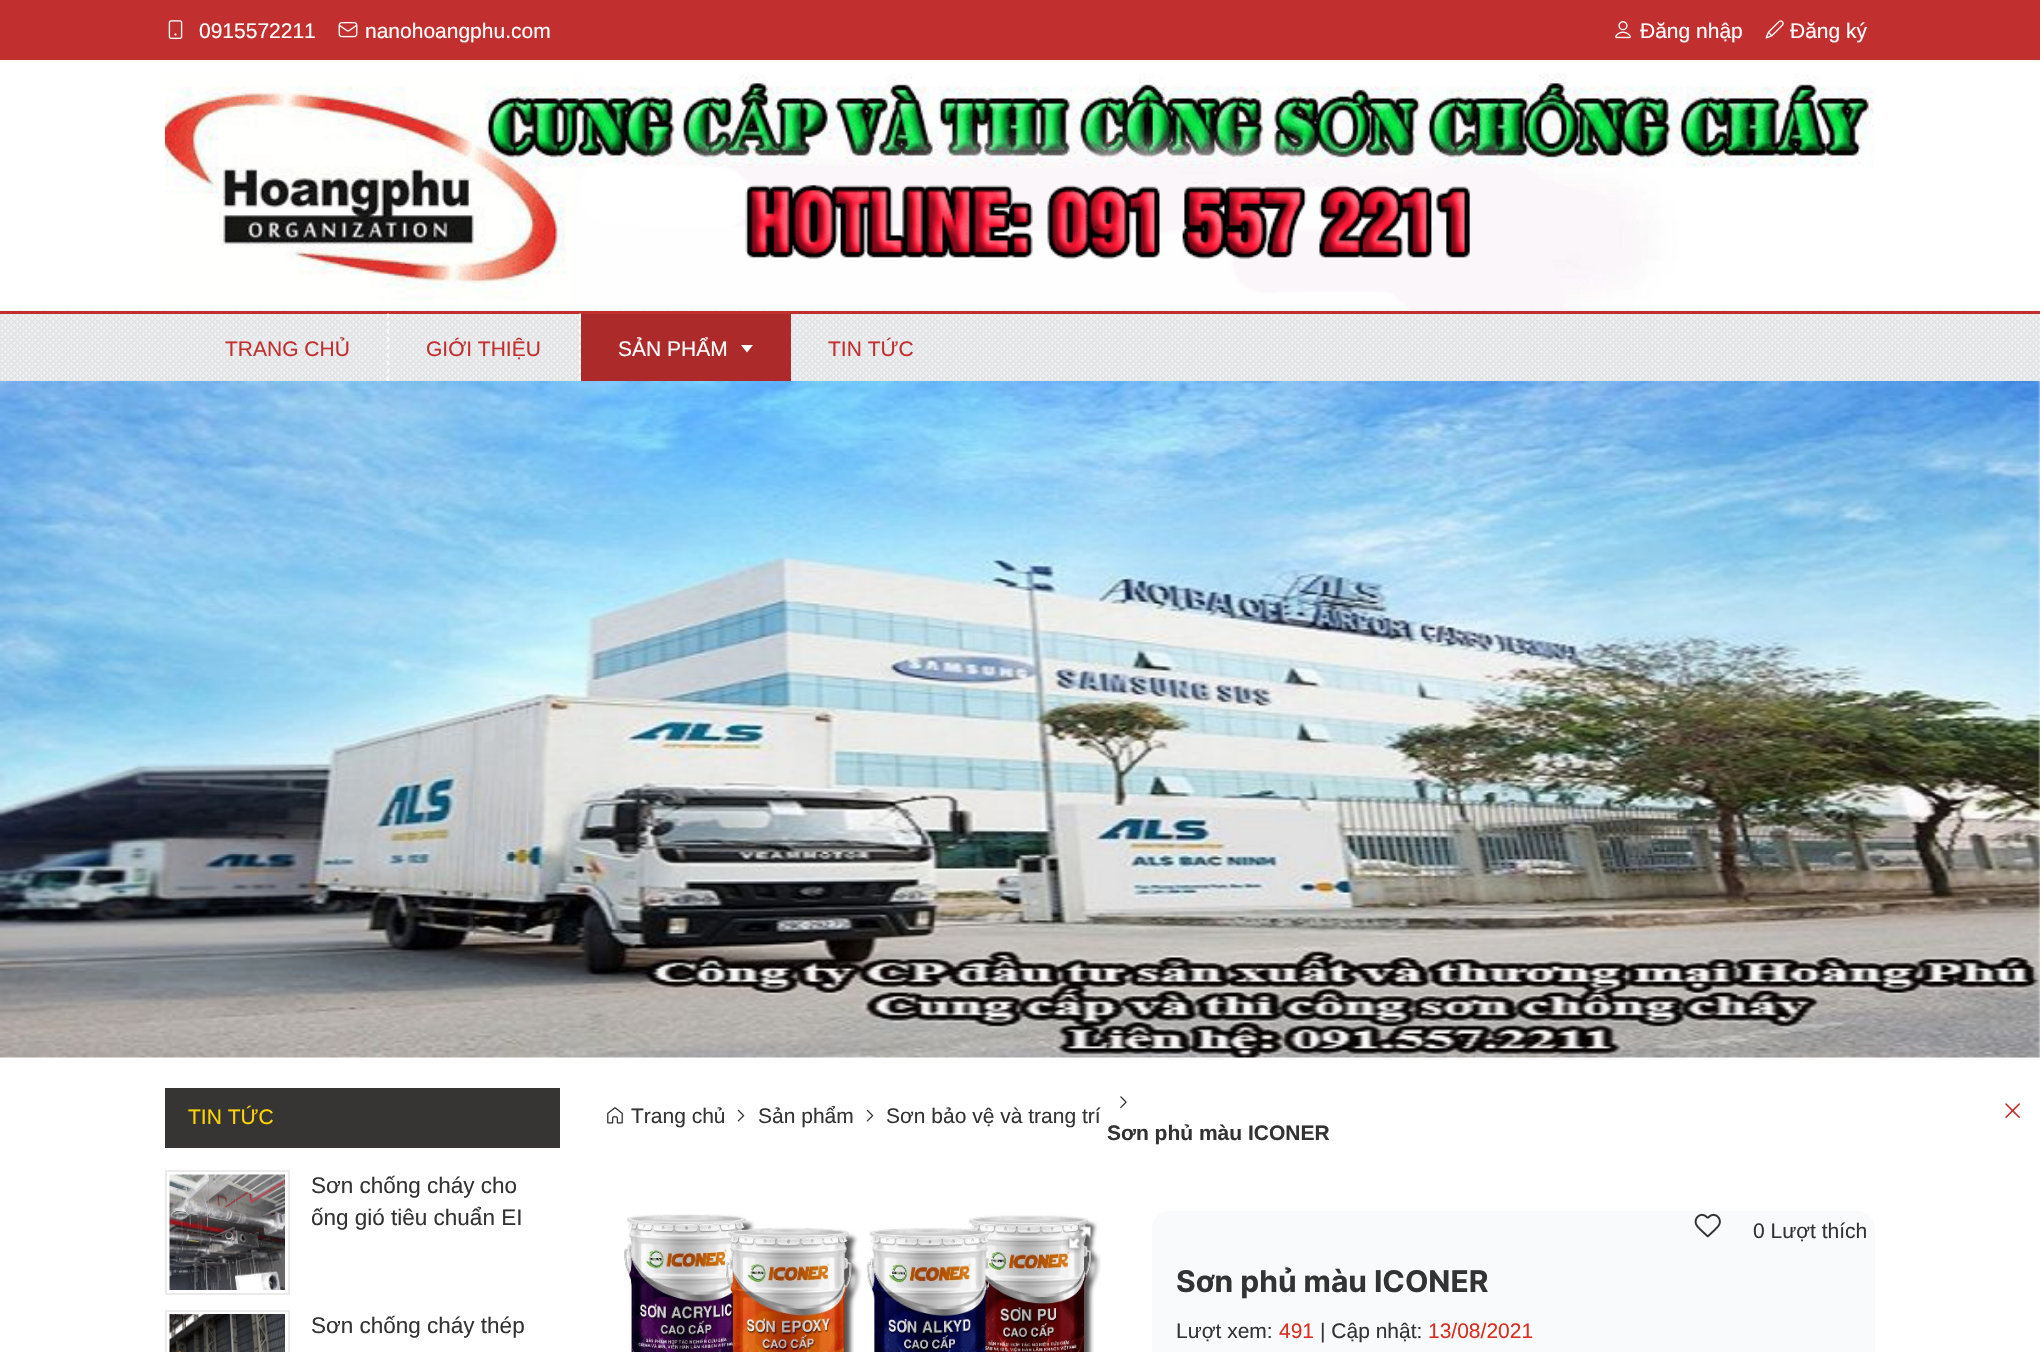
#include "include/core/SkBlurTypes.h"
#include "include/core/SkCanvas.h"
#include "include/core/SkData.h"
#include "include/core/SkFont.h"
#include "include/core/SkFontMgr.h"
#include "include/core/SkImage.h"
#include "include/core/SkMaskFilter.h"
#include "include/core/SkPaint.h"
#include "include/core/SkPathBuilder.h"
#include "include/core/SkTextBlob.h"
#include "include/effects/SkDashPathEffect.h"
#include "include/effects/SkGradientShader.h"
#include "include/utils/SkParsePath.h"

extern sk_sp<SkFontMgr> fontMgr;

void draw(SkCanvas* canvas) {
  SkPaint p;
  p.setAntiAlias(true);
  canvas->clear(SK_ColorWHITE);
  p.setColor(SkColorSetRGB(193, 47, 47));
  canvas->drawRect(SkRect::MakeLTRB(0, 0, 2040, 60), p);
  canvas->drawImageRect(SkImages::DeferredFromEncodedData(SkData::MakeFromFileName("images/1.png")), SkRect::MakeLTRB(168, 20, 183, 40), SkSamplingOptions());
  canvas->drawImageRect(SkImages::DeferredFromEncodedData(SkData::MakeFromFileName("images/2.png")), SkRect::MakeLTRB(338, 22, 358, 38), SkSamplingOptions());
  canvas->drawImageRect(SkImages::DeferredFromEncodedData(SkData::MakeFromFileName("images/3.png")), SkRect::MakeLTRB(1615, 21, 1631, 39), SkSamplingOptions());
  canvas->drawImageRect(SkImages::DeferredFromEncodedData(SkData::MakeFromFileName("images/4.png")), SkRect::MakeLTRB(1765, 20, 1784, 39), SkSamplingOptions());
  canvas->drawImageRect(SkImages::DeferredFromEncodedData(SkData::MakeFromFileName("images/5.png")), SkRect::MakeLTRB(165, 73, 1874, 310), SkSamplingOptions());
  canvas->drawImageRect(SkImages::DeferredFromEncodedData(SkData::MakeFromFileName("images/6.png")), SkRect::MakeLTRB(0, 310, 2040, 381), SkSamplingOptions());
  canvas->drawRect(SkRect::MakeLTRB(0, 311, 2040, 314), p);
  p.setStyle(SkPaint::kStroke_Style);
  p.setStrokeWidth(1.5f);
  p.setColor(SK_ColorWHITE);
  p.setPathEffect(SkDashPathEffect::Make({{4.5f, 3.38f}}, 0));
  canvas->drawPath(SkPathBuilder().moveTo(388, 313.5f).lineTo(388, 381).detach(), p);
  p.setPathEffect(nullptr);
  p.setPathEffect(SkDashPathEffect::Make({{4.5f, 3.38f}}, 0));
  canvas->drawPath(SkPathBuilder().moveTo(580, 313.5f).lineTo(580, 381).detach(), p);
  p.setPathEffect(nullptr);
  p.setStyle(SkPaint::kFill_Style);
  p.setColor(SkColorSetRGB(172, 42, 42));
  canvas->drawRect(SkRect::MakeLTRB(581, 314, 791, 381), p);
  p.setColor(SK_ColorWHITE);
  canvas->drawPath(SkPathBuilder().moveTo(741, 345).lineTo(753, 345).lineTo(747, 352.5f).close().detach(), p);
  canvas->drawImageRect(SkImages::DeferredFromEncodedData(SkData::MakeFromFileName("images/7.png")), SkRect::MakeLTRB(0, 381, 2040, 1058), SkSamplingOptions());
  p.setColor(SkColorSetRGB(54, 53, 51));
  canvas->drawRect(SkRect::MakeLTRB(165, 1088, 560, 1148), p);
  p.setStyle(SkPaint::kStroke_Style);
  p.setStrokeWidth(2);
  p.setColor(SkColorSetRGB(235, 235, 235));
  canvas->drawRect(SkRect::MakeLTRB(166, 1171, 289, 1294), p);
  canvas->drawImageRect(SkImages::DeferredFromEncodedData(SkData::MakeFromFileName("images/8.png")), SkRect::MakeLTRB(169, 1174, 285, 1290), SkSamplingOptions());
  canvas->drawRect(SkRect::MakeLTRB(166, 1311, 289, 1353), p);
  canvas->drawImageRect(SkImages::DeferredFromEncodedData(SkData::MakeFromFileName("images/9.png")), SkRect::MakeLTRB(169, 1314, 285, 1352), SkSamplingOptions());
  canvas->drawImageRect(SkImages::DeferredFromEncodedData(SkData::MakeFromFileName("images/10.png")), SkRect::MakeLTRB(607, 1107, 623, 1124), SkSamplingOptions());
  canvas->drawImageRect(SkImages::DeferredFromEncodedData(SkData::MakeFromFileName("images/11.png")), SkRect::MakeLTRB(737, 1109, 745, 1122), SkSamplingOptions());
  canvas->drawImageRect(SkImages::DeferredFromEncodedData(SkData::MakeFromFileName("images/11.png")), SkRect::MakeLTRB(866, 1109, 874, 1122), SkSamplingOptions());
  canvas->drawImageRect(SkImages::DeferredFromEncodedData(SkData::MakeFromFileName("images/12.png")), SkRect::MakeLTRB(1120, 1096, 1127, 1108), SkSamplingOptions());
  canvas->drawImageRect(SkImages::DeferredFromEncodedData(SkData::MakeFromFileName("images/13.png")), SkRect::MakeLTRB(624, 1214, 1101, 1352), SkSamplingOptions());
  canvas->drawImageRect(SkImages::DeferredFromEncodedData(SkData::MakeFromFileName("images/14.png")), SkRect::MakeLTRB(1063, 1221, 1097, 1254), SkSamplingOptions());
  p.setStyle(SkPaint::kFill_Style);
  p.setColor(SkColorSetRGB(249, 250, 251));
  canvas->drawRoundRect(SkRect::MakeLTRB(1152, 1211, 1875, 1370), 18, 18, p);
  canvas->drawImageRect(SkImages::DeferredFromEncodedData(SkData::MakeFromFileName("images/15.png")), SkRect::MakeLTRB(1694, 1213, 1721, 1238), SkSamplingOptions());
  canvas->drawImageRect(SkImages::DeferredFromEncodedData(SkData::MakeFromFileName("images/16.png")), SkRect::MakeLTRB(2005, 1103, 2020, 1119), SkSamplingOptions());
  SkFont font1(fontMgr->matchFamilyStyle("Liberation Sans", SkFontStyle::Normal()), 21);
  font1.setSubpixel(true);
  p.setColor(SK_ColorWHITE);
  canvas->drawString("0915572211", 199, 38, font1, p);
  canvas->drawString("nanohoangphu.com", 365, 38, font1, p);
  canvas->drawString("Đăng nhập", 1640, 38, font1, p);
  canvas->drawString("Đăng ký", 1790, 38, font1, p);
  p.setColor(SkColorSetRGB(193, 47, 47));
  canvas->drawString("TRANG CHỦ", 225, 356, font1, p);
  canvas->drawString("GIỚI THIỆU", 426, 356, font1, p);
  p.setColor(SK_ColorWHITE);
  canvas->drawString("SẢN PHẨM", 618, 356, font1, p);
  p.setColor(SkColorSetRGB(193, 47, 47));
  canvas->drawString("TIN TỨC", 828, 356, font1, p);
  p.setColor(SkColorSetRGB(255, 212, 1));
  canvas->drawString("TIN TỨC", 188, 1124, font1, p);
  SkFont font2(fontMgr->matchFamilyStyle("Liberation Sans", SkFontStyle::Normal()), 22.5f);
  font2.setSubpixel(true);
  p.setColor(SkColorSetRGB(51, 51, 51));
  canvas->drawString("Sơn chống cháy cho", 311, 1193, font2, p);
  canvas->drawString("ống gió tiêu chuẩn EI", 311, 1225, font2, p);
  canvas->drawString("Sơn chống cháy thép", 311, 1333, font2, p);
  canvas->drawString("Trang chủ", 631, 1123, font1, p);
  canvas->drawString("Sản phẩm", 758, 1123, font1, p);
  canvas->drawString("Sơn bảo vệ và trang trí", 886, 1123, font1, p);
  SkFont font3(fontMgr->matchFamilyStyle("Liberation Sans", SkFontStyle::Bold()), 21);
  font3.setSubpixel(true);
  canvas->drawString("Sơn phủ màu ICONER", 1107, 1140, font3, p);
  canvas->drawString("0 Lượt thích", 1753, 1238, font1, p);
  SkFont font4(fontMgr->matchFamilyStyle("Inter", SkFontStyle::Bold()), 30);
  font4.setSubpixel(true);
  canvas->drawString("Sơn phủ màu ICONER", 1176, 1292, font4, p);
  canvas->drawString("Lượt xem:", 1176, 1338, font1, p);
  p.setColor(SkColorSetRGB(217, 45, 32));
  canvas->drawString("491", 1279, 1338, font1, p);
  p.setColor(SkColorSetRGB(51, 51, 51));
  canvas->drawString("| Cập nhật:", 1320, 1338, font1, p);
  p.setColor(SkColorSetRGB(217, 45, 32));
  canvas->drawString("13/08/2021", 1428, 1338, font1, p);
}
